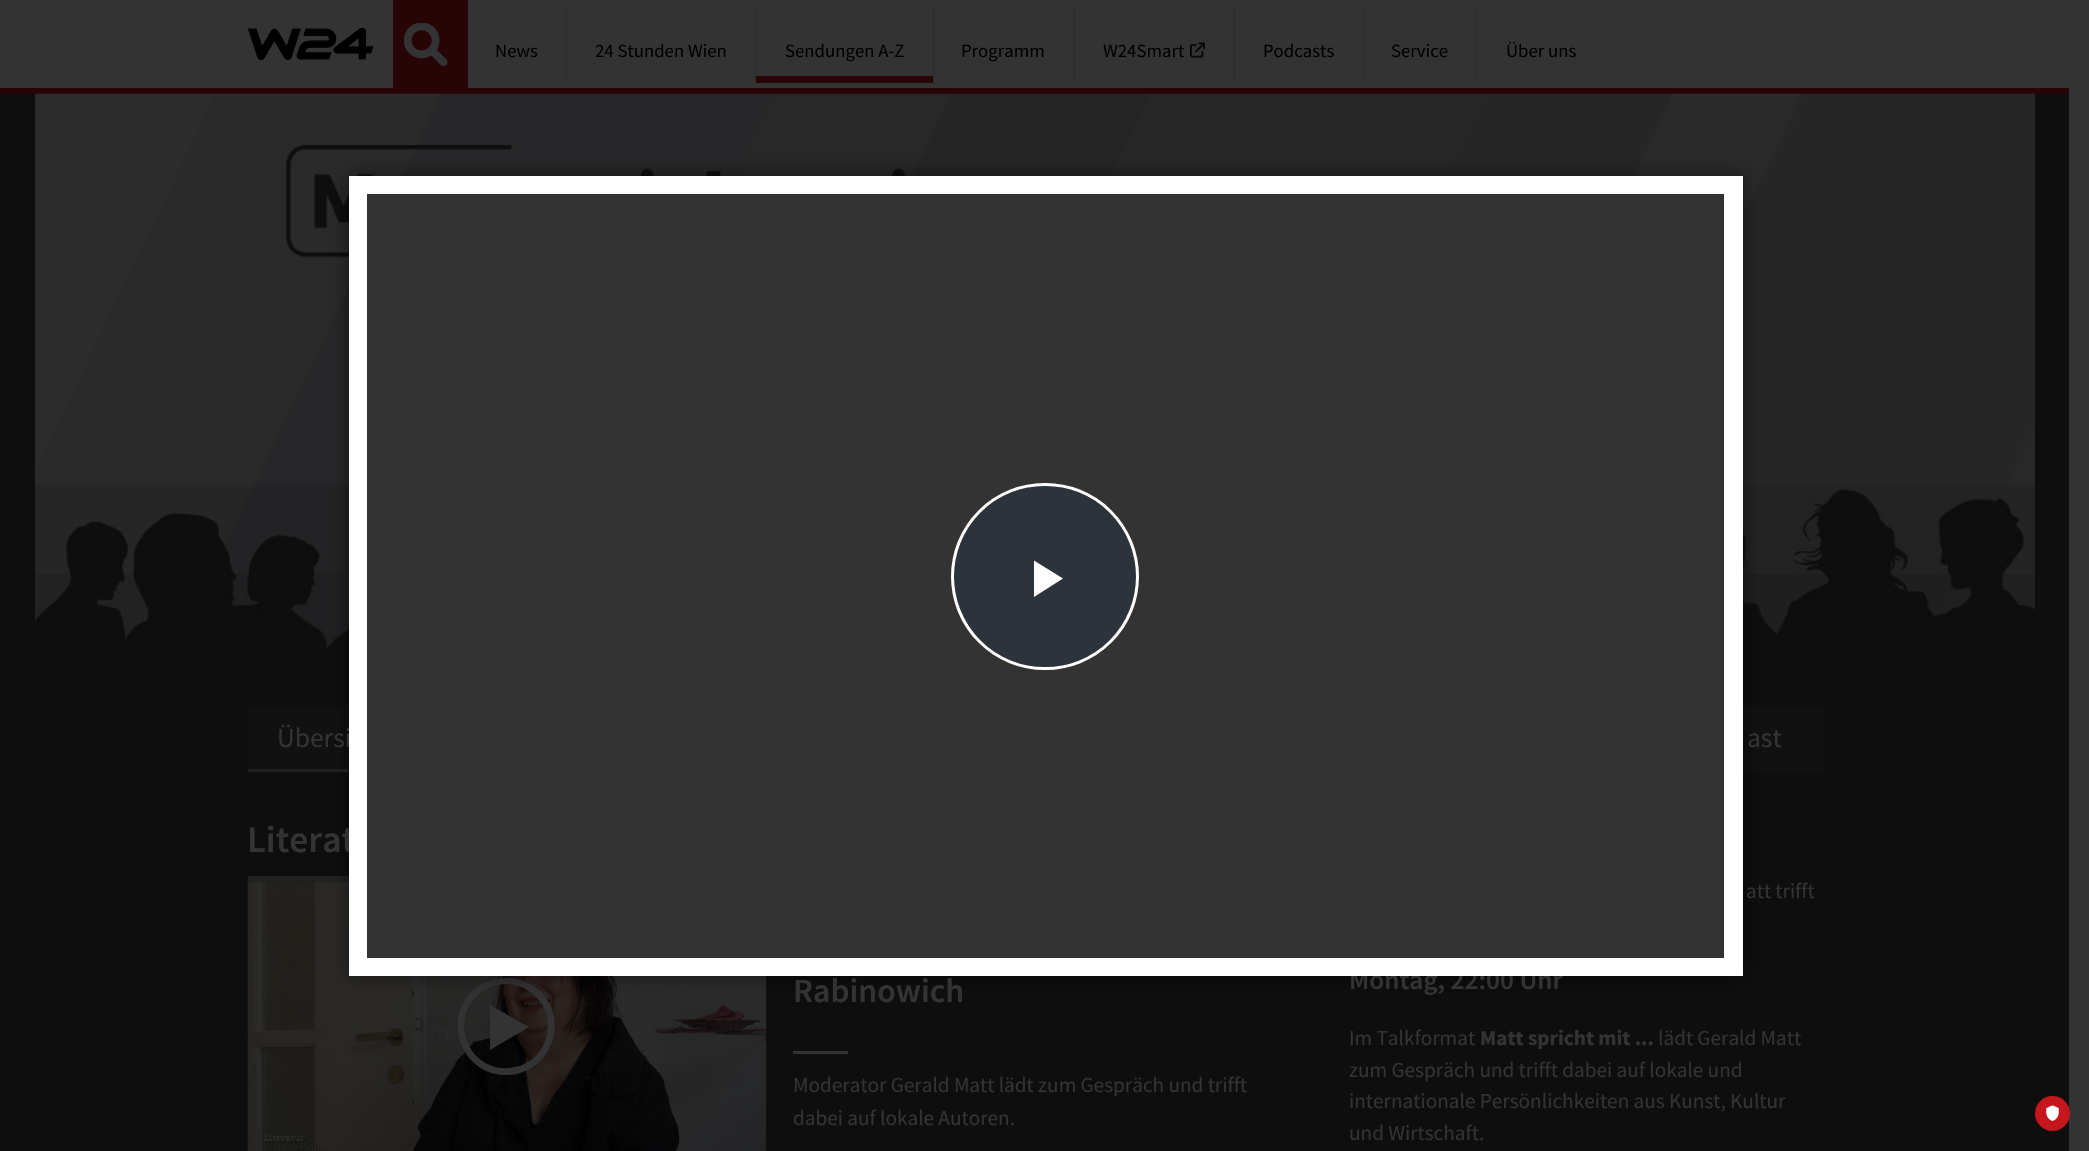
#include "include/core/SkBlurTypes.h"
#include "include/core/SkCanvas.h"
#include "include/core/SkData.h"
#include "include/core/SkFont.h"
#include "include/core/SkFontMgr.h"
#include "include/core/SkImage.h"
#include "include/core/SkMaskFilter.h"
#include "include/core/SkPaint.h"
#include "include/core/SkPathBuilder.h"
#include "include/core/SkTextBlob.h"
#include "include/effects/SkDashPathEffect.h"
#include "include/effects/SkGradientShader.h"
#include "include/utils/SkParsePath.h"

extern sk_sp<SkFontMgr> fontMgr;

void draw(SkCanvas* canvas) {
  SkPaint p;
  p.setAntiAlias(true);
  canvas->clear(SkColorSetRGB(51, 51, 51));
  p.setColor(SkColorSetRGB(39, 4, 6));
  canvas->drawRect(SkRect::MakeLTRB(0, 88, 2069, 94), p);
  canvas->drawImageRect(SkImages::DeferredFromEncodedData(SkData::MakeFromFileName("images/1.png")), SkRect::MakeLTRB(248, 28, 374, 60), SkSamplingOptions());
  canvas->drawRect(SkRect::MakeLTRB(393, 0, 468, 88), p);
  canvas->drawImageRect(SkImages::DeferredFromEncodedData(SkData::MakeFromFileName("images/2.png")), SkRect::MakeLTRB(404, 23, 448, 66), SkSamplingOptions());
  p.setColor(SkColorSetRGB(44, 44, 44));
  canvas->drawRect(SkRect::MakeLTRB(566, 6, 567, 83), p);
  canvas->drawRect(SkRect::MakeLTRB(755, 6, 756, 83), p);
  canvas->drawRect(SkRect::MakeLTRB(933, 6, 934, 83), p);
  p.setColor(SkColorSetRGB(39, 4, 6));
  canvas->drawRect(SkRect::MakeLTRB(756, 76, 933, 83), p);
  p.setColor(SkColorSetRGB(44, 44, 44));
  canvas->drawRect(SkRect::MakeLTRB(1074, 6, 1075, 83), p);
  canvas->drawRect(SkRect::MakeLTRB(1234, 6, 1235, 83), p);
  canvas->drawImageRect(SkImages::DeferredFromEncodedData(SkData::MakeFromFileName("images/3.png")), SkRect::MakeLTRB(1190, 42, 1205, 58), SkSamplingOptions());
  canvas->drawRect(SkRect::MakeLTRB(1363, 6, 1364, 83), p);
  canvas->drawRect(SkRect::MakeLTRB(1476, 6, 1477, 83), p);
  p.setColor(SkColorSetRGB(14, 14, 15));
  canvas->drawRect(SkRect::MakeLTRB(0, 94, 2069, 1151), p);
  canvas->drawImageRect(SkImages::DeferredFromEncodedData(SkData::MakeFromFileName("images/4.png")), SkRect::MakeLTRB(35, 93, 2035, 698), SkSamplingOptions());
  p.setColor(SkColorSetRGB(17, 17, 18));
  canvas->drawRect(SkRect::MakeLTRB(248, 706, 349, 773), p);
  p.setColor(SkColorSetRGB(33, 34, 34));
  canvas->drawPath(SkPathBuilder().moveTo(420, 772).lineTo(248, 772).lineTo(248, 769).lineTo(419, 769).close().detach(), p);
  p.setColor(SkColorSetRGB(17, 17, 18));
  canvas->drawRect(SkRect::MakeLTRB(1743, 706, 1823, 773), p);
  {
    const SkColor colors[] = {SkColorSetRGB(17, 17, 18), SkColorSetRGB(14, 14, 15)};
    const float stops[] = {0, 1};
    const SkPoint ends[] = {{767, 881}, {767, 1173}};
    p.setShader(SkGradientShader::MakeLinear(ends, colors, stops, 2, SkTileMode::kClamp));
    p.setAlpha(255);
  }
  canvas->drawRect(SkRect::MakeLTRB(248, 881, 1286, 930), p);
  p.setShader(nullptr);
  p.setColor(SkColorSetRGB(33, 34, 34));
  canvas->drawRect(SkRect::MakeLTRB(248, 876, 349, 881), p);
  canvas->drawImageRect(SkImages::DeferredFromEncodedData(SkData::MakeFromFileName("images/5.png")), SkRect::MakeLTRB(247, 881, 767, 1151), SkSamplingOptions());
  canvas->save();
  canvas->clipRect(SkRect::MakeLTRB(458, 978, 555, 1075));
  p.setColor(SkColorSetRGB(51, 51, 51));
  canvas->drawPath(SkPathBuilder().moveTo(506, 984).cubicTo(529, 984, 548, 1003, 548, 1025).lineTo(549, 1025).lineTo(548, 1025).cubicTo(548, 1048, 532, 1067, 508, 1068).cubicTo(483, 1070, 464, 1049, 464, 1025).lineTo(463, 1025).lineTo(464, 1025).cubicTo(465, 1002, 483, 984, 506, 984).moveTo(506, 978).cubicTo(494, 978, 481, 983, 472, 991).cubicTo(442, 1021, 462, 1075, 506, 1075).cubicTo(550, 1075, 571, 1021, 540, 991).cubicTo(531, 983, 519, 978, 506, 978).close().detach(), p);
  canvas->restore();
  canvas->drawPath(SkPathBuilder().moveTo(490, 1005).lineTo(490, 1050).lineTo(529, 1027).close().detach(), p);
  canvas->drawRect(SkRect::MakeLTRB(793, 1051, 848, 1054), p);
  p.setColor(SkColorSetARGB(128, 0, 0, 0));
  p.setMaskFilter(SkMaskFilter::MakeBlur(kNormal_SkBlurStyle, 9.5f));
  canvas->drawRect(SkRect::MakeLTRB(349, 176, 1743, 976), p);
  p.setMaskFilter(nullptr);
  p.setColor(SkColorSetRGB(196, 22, 28));
  canvas->drawCircle(2052.5f, 1113.5f, 17.5f, p);
  canvas->drawImageRect(SkImages::DeferredFromEncodedData(SkData::MakeFromFileName("images/6.png")), SkRect::MakeLTRB(2046, 1105, 2059, 1121), SkSamplingOptions());
  SkFont font1(fontMgr->matchFamilyStyle("Source Sans Pro", SkFontStyle::Normal()), 18.75f);
  font1.setSubpixel(true);
  p.setColor(SK_ColorBLACK);
  canvas->drawString("News", 495, 57, font1, p);
  canvas->drawString("24 Stunden Wien", 595, 57, font1, p);
  canvas->drawString("Sendungen A-Z", 785, 57, font1, p);
  canvas->drawString("Programm", 961, 57, font1, p);
  canvas->drawString("W24Smart", 1103, 57, font1, p);
  canvas->drawString("Podcasts", 1263, 57, font1, p);
  canvas->drawString("Service", 1391, 57, font1, p);
  canvas->drawString("Über uns", 1506, 57, font1, p);
  SkFont font2(fontMgr->matchFamilyStyle("Source Sans Pro", SkFontStyle::Normal()), 27.5f);
  font2.setSubpixel(true);
  p.setColor(SkColorSetRGB(51, 51, 51));
  canvas->drawString("Übersi", 277, 747, font2, p);
  canvas->drawString("ast", 1747, 747, font2, p);
  SkFont font3(fontMgr->matchFamilyStyle("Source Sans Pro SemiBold", SkFontStyle(600, SkFontStyle::kNormal_Width, SkFontStyle::kUpright_Slant)), 37.5f);
  font3.setSubpixel(true);
  canvas->drawString("Literat", 247, 852, font3, p);
  SkFont font4(fontMgr->matchFamilyStyle("Source Sans Pro SemiBold", SkFontStyle(600, SkFontStyle::kNormal_Width, SkFontStyle::kUpright_Slant)), 33.75f);
  font4.setSubpixel(true);
  canvas->drawString("Rabinowich", 793, 1002, font4, p);
  SkFont font5(fontMgr->matchFamilyStyle("Source Sans Pro", SkFontStyle::Normal()), 21.25f);
  font5.setSubpixel(true);
  canvas->drawString("Moderator Gerald Matt lädt zum Gespräch und trifft", 793, 1092, font5, p);
  canvas->drawString("dabei auf lokale Autoren.", 793, 1125, font5, p);
  canvas->drawString("att trifft", 1746, 898, font5, p);
  SkFont font6(fontMgr->matchFamilyStyle("Source Sans Pro SemiBold", SkFontStyle(600, SkFontStyle::kNormal_Width, SkFontStyle::kUpright_Slant)), 27.25f);
  font6.setSubpixel(true);
  canvas->drawString("Montag, 22:00 Uhr", 1349, 989, font6, p);
  canvas->drawString("Im Talkformat", 1349, 1045, font5, p);
  SkFont font7(fontMgr->matchFamilyStyle("Source Sans Pro", SkFontStyle::Bold()), 21.25f);
  font7.setSubpixel(true);
  canvas->drawString("Matt spricht mit ...", 1480, 1045, font7, p);
  canvas->drawString("lädt Gerald Matt", 1658, 1045, font5, p);
  canvas->drawString("zum Gespräch und trifft dabei auf lokale und", 1349, 1077, font5, p);
  canvas->drawString("internationale Persönlichkeiten aus Kunst, Kultur", 1349, 1108, font5, p);
  canvas->drawString("und Wirtschaft.", 1349, 1140, font5, p);
  p.setColor(SK_ColorWHITE);
  canvas->drawRect(SkRect::MakeLTRB(349, 176, 1743, 976), p);
  p.setColor(SkColorSetRGB(51, 51, 51));
  canvas->drawRect(SkRect::MakeLTRB(367, 194, 1724, 958), p);
  p.setColor(SkColorSetRGB(45, 51, 59));
  canvas->drawRoundRect(SkRect::MakeLTRB(952.5f, 484.5f, 1137.5f, 668.5f), 92, 92, p);
  p.setStyle(SkPaint::kStroke_Style);
  p.setStrokeWidth(3);
  p.setColor(SK_ColorWHITE);
  canvas->drawRoundRect(SkRect::MakeLTRB(952.5f, 484.5f, 1137.5f, 668.5f), 92, 92, p);
  p.setStyle(SkPaint::kFill_Style);
  canvas->drawPath(SkPathBuilder().moveTo(1034, 560.5f).lineTo(1034, 597).lineTo(1063, 578.5f).close().detach(), p);
}
